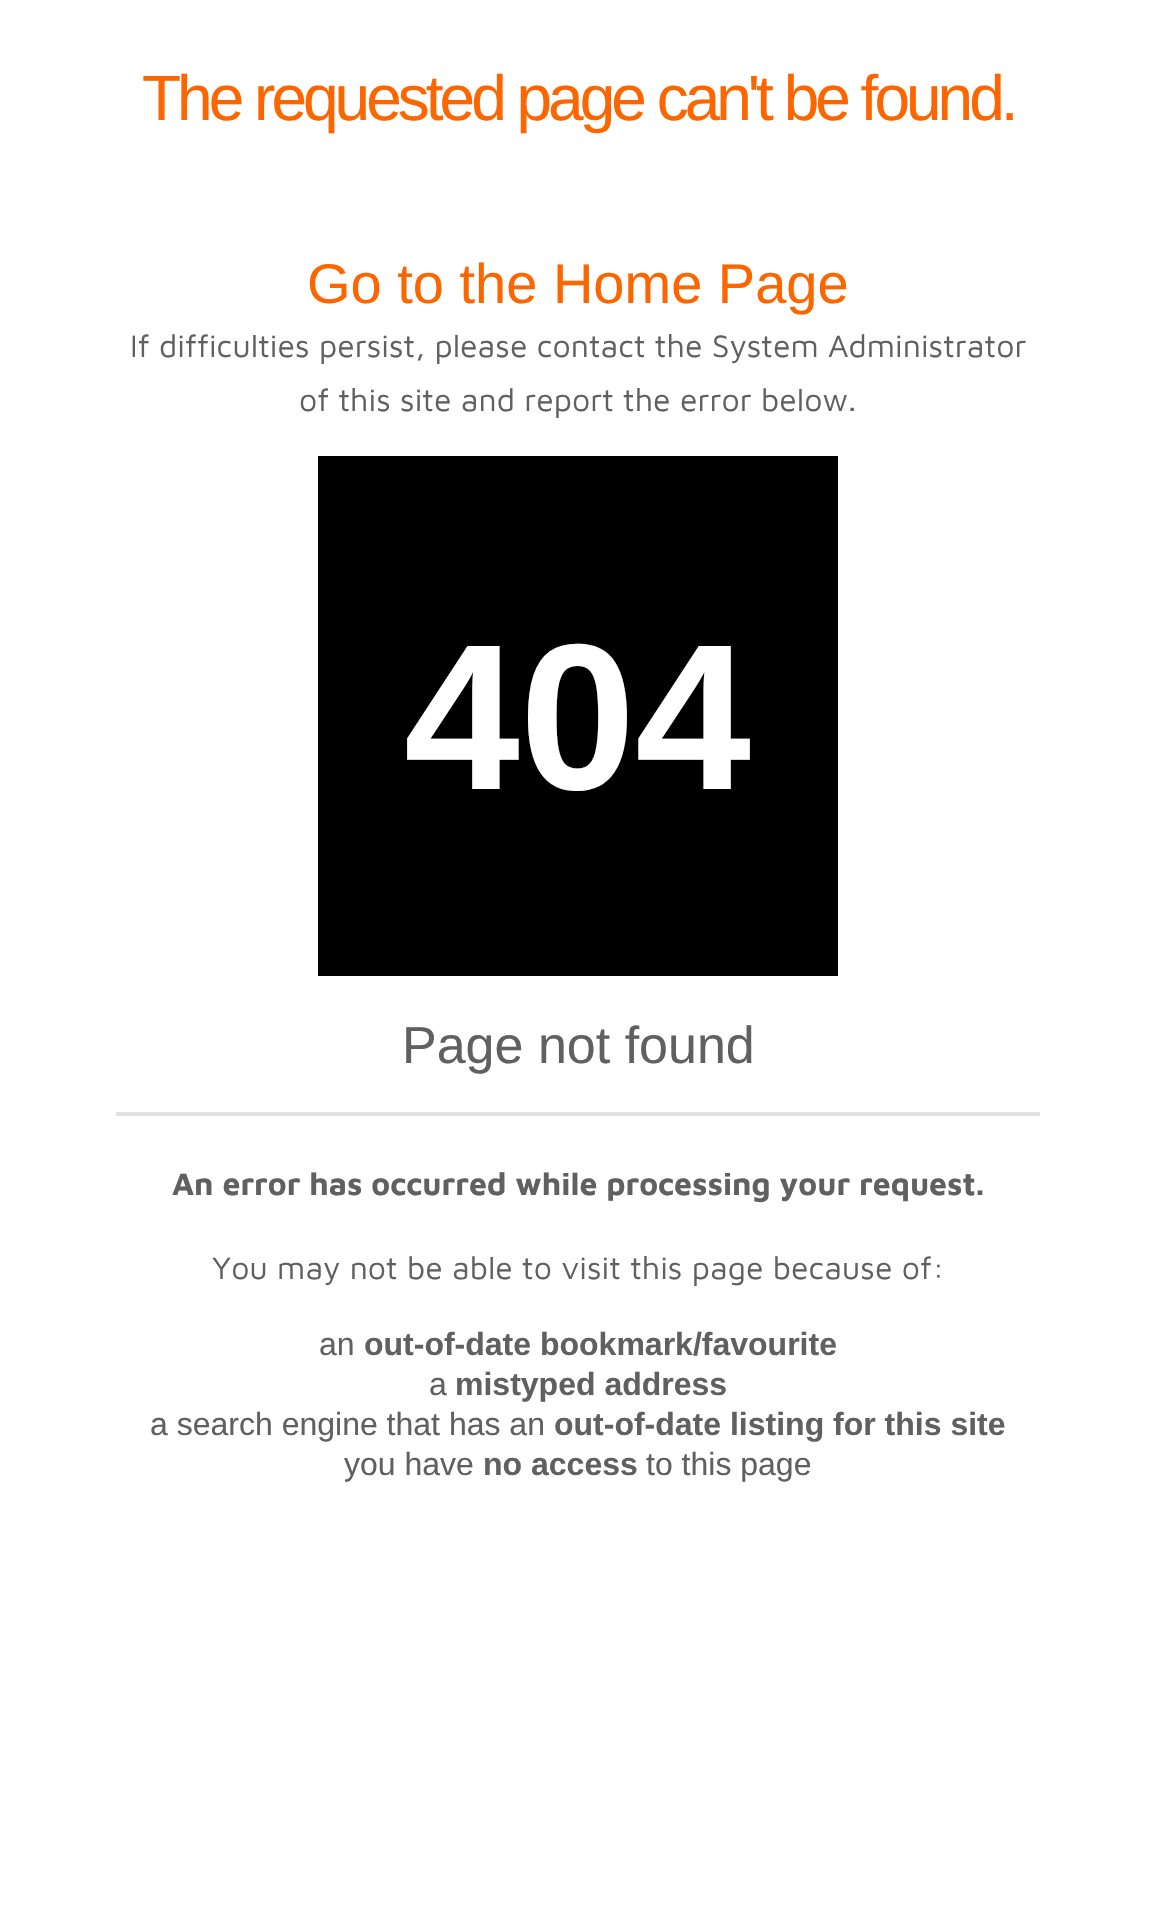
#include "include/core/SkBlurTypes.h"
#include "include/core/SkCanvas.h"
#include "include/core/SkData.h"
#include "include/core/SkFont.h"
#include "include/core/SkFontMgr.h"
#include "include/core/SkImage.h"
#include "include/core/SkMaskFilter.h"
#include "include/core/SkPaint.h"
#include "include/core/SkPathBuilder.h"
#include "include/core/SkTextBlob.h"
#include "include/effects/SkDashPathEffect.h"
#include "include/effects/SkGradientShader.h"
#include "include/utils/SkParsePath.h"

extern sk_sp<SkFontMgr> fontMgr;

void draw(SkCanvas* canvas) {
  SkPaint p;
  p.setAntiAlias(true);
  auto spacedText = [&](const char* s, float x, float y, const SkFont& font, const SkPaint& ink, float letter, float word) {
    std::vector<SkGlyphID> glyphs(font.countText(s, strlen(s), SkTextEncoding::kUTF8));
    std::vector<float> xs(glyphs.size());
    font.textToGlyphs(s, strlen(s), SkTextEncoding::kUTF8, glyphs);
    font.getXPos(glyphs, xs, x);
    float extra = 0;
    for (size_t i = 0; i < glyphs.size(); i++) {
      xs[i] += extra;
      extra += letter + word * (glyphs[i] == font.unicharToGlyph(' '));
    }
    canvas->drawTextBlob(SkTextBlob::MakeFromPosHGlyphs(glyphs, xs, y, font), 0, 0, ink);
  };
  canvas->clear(SK_ColorWHITE);
  p.setColor(SK_ColorBLACK);
  canvas->drawRect(SkRect::MakeLTRB(318, 456, 838, 976), p);
  p.setColor(SkColorSetRGB(225, 225, 225));
  canvas->drawRect(SkRect::MakeLTRB(116, 1112, 1040, 1116), p);
  SkFont font1(fontMgr->matchFamilyStyle("Liberation Sans", SkFontStyle::Normal()), 64);
  font1.setSubpixel(true);
  p.setColor(SkColorSetRGB(252, 102, 0));
  spacedText("The requested page can't be found.", 142, 120, font1, p, -4, 0);
  SkFont font2(fontMgr->matchFamilyStyle("Liberation Sans", SkFontStyle::Normal()), 56);
  font2.setSubpixel(true);
  canvas->drawString("Go to the Home Page", 307, 303, font2, p);
  SkFont font3(fontMgr->matchFamilyStyle("Maven Pro", SkFontStyle::Normal()), 32);
  font3.setSubpixel(true);
  p.setColor(SkColorSetRGB(97, 96, 96));
  canvas->drawString("If difficulties persist, please contact the System Administrator", 130, 357, font3, p);
  canvas->drawString("of this site and report the error below.", 299, 411, font3, p);
  SkFont font4(fontMgr->matchFamilyStyle("Liberation Sans", SkFontStyle::Bold()), 208);
  font4.setSubpixel(true);
  p.setColor(SK_ColorWHITE);
  canvas->drawString("404", 404, 789, font4, p);
  SkFont font5(fontMgr->matchFamilyStyle("Liberation Sans", SkFontStyle::Normal()), 52);
  font5.setSubpixel(true);
  p.setColor(SkColorSetRGB(97, 96, 96));
  canvas->drawString("Page not found", 402, 1063, font5, p);
  SkFont font6(fontMgr->matchFamilyStyle("Maven Pro", SkFontStyle::Bold()), 32);
  font6.setSubpixel(true);
  canvas->drawString("An error has occurred while processing your request.", 172, 1195, font6, p);
  canvas->drawString("You may not be able to visit this page because of:", 212, 1279, font3, p);
  SkFont font7(fontMgr->matchFamilyStyle("Liberation Sans", SkFontStyle::Normal()), 32);
  font7.setSubpixel(true);
  canvas->drawString("an", 319, 1355, font7, p);
  SkFont font8(fontMgr->matchFamilyStyle("Liberation Sans", SkFontStyle::Bold()), 32);
  font8.setSubpixel(true);
  canvas->drawString("out-of-date bookmark/favourite", 364, 1355, font8, p);
  canvas->drawString("a", 429, 1395, font7, p);
  canvas->drawString("mistyped address", 455, 1395, font8, p);
  canvas->drawString("a search engine that has an", 150, 1435, font7, p);
  canvas->drawString("out-of-date listing for this site", 554, 1435, font8, p);
  canvas->drawString("you have", 344, 1475, font7, p);
  canvas->drawString("no access", 483, 1475, font8, p);
  canvas->drawString("to this page", 646, 1475, font7, p);
}
